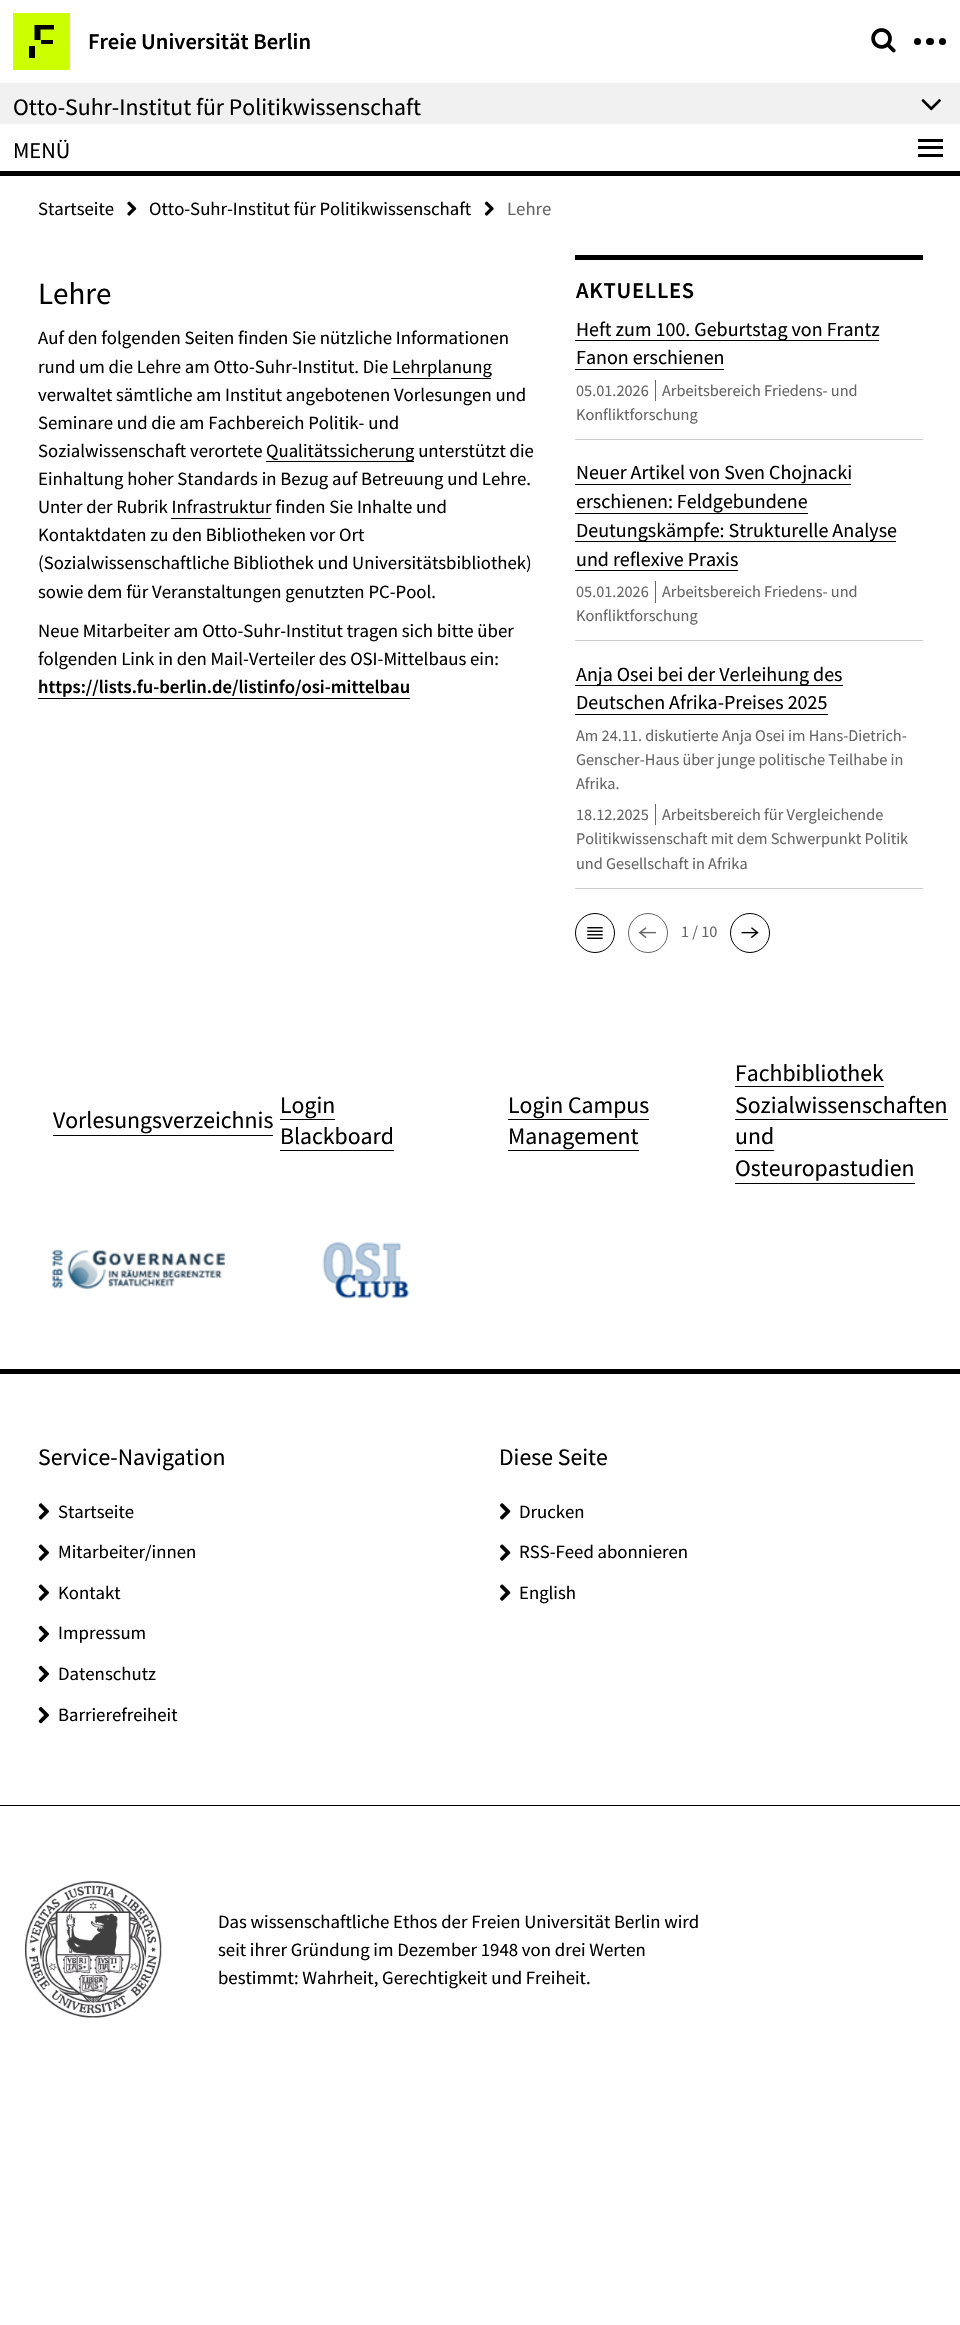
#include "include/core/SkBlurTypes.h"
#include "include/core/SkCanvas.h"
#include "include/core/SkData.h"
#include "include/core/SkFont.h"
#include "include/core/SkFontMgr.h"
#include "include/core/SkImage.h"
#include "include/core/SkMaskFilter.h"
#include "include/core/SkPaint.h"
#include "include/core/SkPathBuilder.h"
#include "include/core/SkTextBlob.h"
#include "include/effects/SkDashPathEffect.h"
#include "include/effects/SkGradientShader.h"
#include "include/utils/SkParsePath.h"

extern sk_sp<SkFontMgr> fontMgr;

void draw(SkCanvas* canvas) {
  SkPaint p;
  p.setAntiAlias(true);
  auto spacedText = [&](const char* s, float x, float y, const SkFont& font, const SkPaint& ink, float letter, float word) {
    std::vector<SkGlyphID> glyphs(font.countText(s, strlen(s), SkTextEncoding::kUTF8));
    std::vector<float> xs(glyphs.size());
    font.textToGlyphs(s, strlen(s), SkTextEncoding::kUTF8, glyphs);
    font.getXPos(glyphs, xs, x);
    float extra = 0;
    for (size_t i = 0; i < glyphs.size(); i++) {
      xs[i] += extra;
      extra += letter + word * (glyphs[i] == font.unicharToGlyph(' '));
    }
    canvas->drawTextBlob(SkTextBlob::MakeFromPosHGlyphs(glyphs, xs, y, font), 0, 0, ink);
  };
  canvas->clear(SK_ColorWHITE);
  p.setColor(SkColorSetRGB(204, 255, 0));
  canvas->drawRect(SkRect::MakeLTRB(13, 13, 70, 70), p);
  p.setColor(SK_ColorBLACK);
  canvas->drawPath(SkPathBuilder().moveTo(34.5f, 25).lineTo(54, 25).lineTo(54, 29.5f).lineTo(40.5f, 29.5f).lineTo(40.5f, 40).lineTo(34.5f, 40).close().detach(), p);
  canvas->drawRect(SkRect::MakeLTRB(41, 40, 53, 44), p);
  canvas->drawRect(SkRect::MakeLTRB(29, 46, 35, 58), p);
  canvas->drawImageRect(SkImages::DeferredFromEncodedData(SkData::MakeFromFileName("images/1.png")), SkRect::MakeLTRB(871, 28, 896, 53), SkSamplingOptions());
  canvas->drawCircle(917.5f, 41.5f, 3.5f, p);
  canvas->drawRoundRect(SkRect::MakeLTRB(926, 38, 934, 45), 3.5f, 3.5f, p);
  canvas->drawCircle(942.5f, 41.5f, 3.5f, p);
  p.setColor(SkColorSetRGB(241, 241, 241));
  canvas->drawRect(SkRect::MakeLTRB(0, 83, 960, 124), p);
  canvas->drawImageRect(SkImages::DeferredFromEncodedData(SkData::MakeFromFileName("images/2.png")), SkRect::MakeLTRB(921, 99, 941, 111), SkSamplingOptions());
  p.setColor(SK_ColorBLACK);
  canvas->drawRect(SkRect::MakeLTRB(0, 171, 960, 176), p);
  canvas->drawRect(SkRect::MakeLTRB(918, 139, 943, 142), p);
  canvas->drawRect(SkRect::MakeLTRB(918, 146, 943, 149), p);
  canvas->drawRect(SkRect::MakeLTRB(918, 154, 943, 157), p);
  canvas->drawImageRect(SkImages::DeferredFromEncodedData(SkData::MakeFromFileName("images/3.png")), SkRect::MakeLTRB(127, 201, 137, 216), SkSamplingOptions());
  canvas->drawImageRect(SkImages::DeferredFromEncodedData(SkData::MakeFromFileName("images/4.png")), SkRect::MakeLTRB(484, 201, 494, 216), SkSamplingOptions());
  canvas->drawRect(SkRect::MakeLTRB(391, 378, 491, 379), p);
  canvas->drawRect(SkRect::MakeLTRB(266, 461, 414, 462), p);
  canvas->drawRect(SkRect::MakeLTRB(171, 518, 271, 519), p);
  canvas->drawRect(SkRect::MakeLTRB(38, 698, 410, 699), p);
  canvas->drawRect(SkRect::MakeLTRB(575, 255, 923, 260), p);
  p.setColor(SkColorSetRGB(204, 204, 204));
  canvas->drawRect(SkRect::MakeLTRB(575, 439, 923, 440), p);
  p.setColor(SK_ColorBLACK);
  canvas->drawRect(SkRect::MakeLTRB(575, 340, 879, 341), p);
  canvas->drawRect(SkRect::MakeLTRB(575, 369, 724, 370), p);
  p.setColor(SkColorSetRGB(102, 102, 102));
  canvas->drawRect(SkRect::MakeLTRB(655, 380, 656, 401), p);
  p.setColor(SkColorSetRGB(204, 204, 204));
  canvas->drawRect(SkRect::MakeLTRB(575, 640, 923, 641), p);
  p.setColor(SK_ColorBLACK);
  canvas->drawRect(SkRect::MakeLTRB(575, 484, 851, 485), p);
  canvas->drawRect(SkRect::MakeLTRB(575, 513, 808, 514), p);
  canvas->drawRect(SkRect::MakeLTRB(575, 541, 896, 542), p);
  canvas->drawRect(SkRect::MakeLTRB(575, 570, 738, 571), p);
  p.setColor(SkColorSetRGB(102, 102, 102));
  canvas->drawRect(SkRect::MakeLTRB(655, 581, 656, 603), p);
  p.setColor(SkColorSetRGB(204, 204, 204));
  canvas->drawRect(SkRect::MakeLTRB(575, 888, 923, 889), p);
  p.setColor(SK_ColorBLACK);
  canvas->drawRect(SkRect::MakeLTRB(575, 685, 843, 686), p);
  canvas->drawRect(SkRect::MakeLTRB(575, 714, 828, 715), p);
  p.setColor(SkColorSetRGB(102, 102, 102));
  canvas->drawRect(SkRect::MakeLTRB(655, 804, 656, 825), p);
  p.setStyle(SkPaint::kStroke_Style);
  p.setStrokeWidth(1);
  p.setColor(SK_ColorBLACK);
  canvas->drawCircle(595, 933, 19.5f, p);
  canvas->drawImageRect(SkImages::DeferredFromEncodedData(SkData::MakeFromFileName("images/5.png")), SkRect::MakeLTRB(587, 927, 603, 939), SkSamplingOptions());
  p.setColor(SkColorSetRGB(102, 102, 102));
  canvas->drawCircle(648, 933, 19.5f, p);
  canvas->drawImageRect(SkImages::DeferredFromEncodedData(SkData::MakeFromFileName("images/6.png")), SkRect::MakeLTRB(638, 927, 656, 938), SkSamplingOptions());
  p.setColor(SK_ColorBLACK);
  canvas->drawCircle(750, 933, 19.5f, p);
  canvas->drawImageRect(SkImages::DeferredFromEncodedData(SkData::MakeFromFileName("images/7.png")), SkRect::MakeLTRB(741, 927, 759, 939), SkSamplingOptions());
  p.setStyle(SkPaint::kFill_Style);
  canvas->drawRect(SkRect::MakeLTRB(53, 1135, 273, 1136), p);
  canvas->drawRect(SkRect::MakeLTRB(280, 1119, 335, 1120), p);
  canvas->drawRect(SkRect::MakeLTRB(280, 1150, 394, 1151), p);
  canvas->drawRect(SkRect::MakeLTRB(508, 1119, 649, 1120), p);
  canvas->drawRect(SkRect::MakeLTRB(508, 1150, 639, 1151), p);
  canvas->drawRect(SkRect::MakeLTRB(735, 1086, 884, 1087), p);
  canvas->drawRect(SkRect::MakeLTRB(735, 1119, 948, 1120), p);
  canvas->drawRect(SkRect::MakeLTRB(735, 1150, 774, 1151), p);
  canvas->drawRect(SkRect::MakeLTRB(735, 1183, 915, 1184), p);
  canvas->drawImageRect(SkImages::DeferredFromEncodedData(SkData::MakeFromFileName("images/8.png")), SkRect::MakeLTRB(52, 1250, 225, 1289), SkSamplingOptions());
  canvas->drawImageRect(SkImages::DeferredFromEncodedData(SkData::MakeFromFileName("images/9.png")), SkRect::MakeLTRB(322, 1241, 409, 1299), SkSamplingOptions());
  canvas->drawRect(SkRect::MakeLTRB(0, 1369, 960, 1374), p);
  canvas->drawRect(SkRect::MakeLTRB(0, 1805, 960, 1806), p);
  canvas->drawImageRect(SkImages::DeferredFromEncodedData(SkData::MakeFromFileName("images/10.png")), SkRect::MakeLTRB(38, 1503, 49, 1520), SkSamplingOptions());
  canvas->drawImageRect(SkImages::DeferredFromEncodedData(SkData::MakeFromFileName("images/11.png")), SkRect::MakeLTRB(38, 1544, 49, 1561), SkSamplingOptions());
  canvas->drawImageRect(SkImages::DeferredFromEncodedData(SkData::MakeFromFileName("images/11.png")), SkRect::MakeLTRB(38, 1584, 49, 1601), SkSamplingOptions());
  canvas->drawImageRect(SkImages::DeferredFromEncodedData(SkData::MakeFromFileName("images/12.png")), SkRect::MakeLTRB(38, 1625, 49, 1642), SkSamplingOptions());
  canvas->drawImageRect(SkImages::DeferredFromEncodedData(SkData::MakeFromFileName("images/12.png")), SkRect::MakeLTRB(38, 1665, 49, 1682), SkSamplingOptions());
  canvas->drawImageRect(SkImages::DeferredFromEncodedData(SkData::MakeFromFileName("images/13.png")), SkRect::MakeLTRB(38, 1707, 49, 1724), SkSamplingOptions());
  canvas->drawImageRect(SkImages::DeferredFromEncodedData(SkData::MakeFromFileName("images/14.png")), SkRect::MakeLTRB(500, 1503, 511, 1520), SkSamplingOptions());
  canvas->drawImageRect(SkImages::DeferredFromEncodedData(SkData::MakeFromFileName("images/15.png")), SkRect::MakeLTRB(500, 1544, 511, 1561), SkSamplingOptions());
  canvas->drawImageRect(SkImages::DeferredFromEncodedData(SkData::MakeFromFileName("images/15.png")), SkRect::MakeLTRB(500, 1584, 511, 1601), SkSamplingOptions());
  canvas->drawImageRect(SkImages::DeferredFromEncodedData(SkData::MakeFromFileName("images/16.png")), SkRect::MakeLTRB(25, 1881, 162, 2018), SkSamplingOptions());
  SkFont font1(fontMgr->matchFamilyStyle("Source Sans Pro", SkFontStyle(600, SkFontStyle::kNormal_Width, SkFontStyle::kUpright_Slant)), 22.5f);
  font1.setSubpixel(true);
  canvas->drawString("Freie Universität Berlin", 88, 49, font1, p);
  SkFont font2(fontMgr->matchFamilyStyle("Source Sans Pro", SkFontStyle::Normal()), 23.75f);
  font2.setSubpixel(true);
  canvas->drawString("Otto-Suhr-Institut für Politikwissenschaft", 13, 115, font2, p);
  SkFont font3(fontMgr->matchFamilyStyle("Source Sans Pro", SkFontStyle::Normal()), 22.5f);
  font3.setSubpixel(true);
  canvas->drawString("MENÜ", 13, 158, font3, p);
  SkFont font4(fontMgr->matchFamilyStyle("Source Sans Pro", SkFontStyle::Normal()), 18.75f);
  font4.setSubpixel(true);
  canvas->drawString("Startseite", 38, 215, font4, p);
  canvas->drawString("Otto-Suhr-Institut für Politikwissenschaft", 149, 215, font4, p);
  p.setColor(SkColorSetRGB(102, 102, 102));
  canvas->drawString("Lehre", 507, 215, font4, p);
  SkFont font5(fontMgr->matchFamilyStyle("Source Sans Pro", SkFontStyle::Normal()), 31);
  font5.setSubpixel(true);
  p.setColor(SK_ColorBLACK);
  canvas->drawString("Lehre", 38, 304, font5, p);
  canvas->drawString("Auf den folgenden Seiten finden Sie nützliche Informationen", 38, 344, font4, p);
  canvas->drawString("rund um die Lehre am Otto-Suhr-Institut. Die Lehrplanung", 38, 373, font4, p);
  canvas->drawString("verwaltet sämtliche am Institut angebotenen Vorlesungen und", 38, 401, font4, p);
  canvas->drawString("Seminare und die am Fachbereich Politik- und", 38, 429, font4, p);
  canvas->drawString("Sozialwissenschaft verortete", 38, 457, font4, p);
  canvas->drawString("Qualitätssicherung unterstützt die", 266, 457, font4, p);
  canvas->drawString("Einhaltung hoher Standards in Bezug auf Betreuung und Lehre.", 38, 485, font4, p);
  canvas->drawString("Unter der Rubrik Infrastruktur finden Sie Inhalte und", 38, 513, font4, p);
  canvas->drawString("Kontaktdaten zu den Bibliotheken vor Ort", 38, 541, font4, p);
  canvas->drawString("(Sozialwissenschaftliche Bibliothek und Universitätsbibliothek)", 38, 569, font4, p);
  canvas->drawString("sowie dem für Veranstaltungen genutzten PC-Pool.", 38, 598, font4, p);
  canvas->drawString("Neue Mitarbeiter am Otto-Suhr-Institut tragen sich bitte über", 38, 637, font4, p);
  canvas->drawString("folgenden Link in den Mail-Verteiler des OSI-Mittelbaus ein:", 38, 665, font4, p);
  SkFont font6(fontMgr->matchFamilyStyle("Source Sans Pro", SkFontStyle(600, SkFontStyle::kNormal_Width, SkFontStyle::kUpright_Slant)), 18.75f);
  font6.setSubpixel(true);
  canvas->drawString("https://lists.fu-berlin.de/listinfo/osi-mittelbau", 38, 693, font6, p);
  spacedText("AKTUELLES", 576, 298, font1, p, 0.75f, 0);
  SkFont font7(fontMgr->matchFamilyStyle("Source Sans Pro", SkFontStyle::Normal()), 20);
  font7.setSubpixel(true);
  canvas->drawString("Heft zum 100. Geburtstag von Frantz", 576, 336, font7, p);
  canvas->drawString("Fanon erschienen", 576, 364, font7, p);
  SkFont font8(fontMgr->matchFamilyStyle("Source Sans Pro", SkFontStyle::Normal()), 16.25f);
  font8.setSubpixel(true);
  p.setColor(SkColorSetRGB(102, 102, 102));
  canvas->drawString("05.01.2026", 576, 396, font8, p);
  canvas->drawString("Arbeitsbereich Friedens- und", 662, 396, font8, p);
  canvas->drawString("Konfliktforschung", 576, 420, font8, p);
  p.setColor(SK_ColorBLACK);
  canvas->drawString("Neuer Artikel von Sven Chojnacki", 576, 479, font7, p);
  canvas->drawString("erschienen: Feldgebundene", 576, 508, font7, p);
  canvas->drawString("Deutungskämpfe: Strukturelle Analyse", 576, 537, font7, p);
  canvas->drawString("und reflexive Praxis", 576, 566, font7, p);
  p.setColor(SkColorSetRGB(102, 102, 102));
  canvas->drawString("05.01.2026", 576, 597, font8, p);
  canvas->drawString("Arbeitsbereich Friedens- und", 662, 597, font8, p);
  canvas->drawString("Konfliktforschung", 576, 621, font8, p);
  p.setColor(SK_ColorBLACK);
  canvas->drawString("Anja Osei bei der Verleihung des", 576, 681, font7, p);
  canvas->drawString("Deutschen Afrika-Preises 2025", 576, 709, font7, p);
  p.setColor(SkColorSetRGB(102, 102, 102));
  canvas->drawString("Am 24.11. diskutierte Anja Osei im Hans-Dietrich-", 576, 741, font8, p);
  canvas->drawString("Genscher-Haus über junge politische Teilhabe in", 576, 765, font8, p);
  canvas->drawString("Afrika.", 576, 789, font8, p);
  canvas->drawString("18.12.2025", 576, 820, font8, p);
  canvas->drawString("Arbeitsbereich für Vergleichende", 662, 820, font8, p);
  canvas->drawString("Politikwissenschaft mit dem Schwerpunkt Politik", 576, 844, font8, p);
  canvas->drawString("und Gesellschaft in Afrika", 576, 869, font8, p);
  canvas->drawString("1 / 10", 681, 937, font8, p);
  p.setColor(SK_ColorBLACK);
  canvas->drawString("Vorlesungsverzeichnis", 53, 1128, font2, p);
  canvas->drawString("Login", 280, 1113, font2, p);
  canvas->drawString("Blackboard", 280, 1144, font2, p);
  canvas->drawString("Login Campus", 508, 1113, font2, p);
  canvas->drawString("Management", 508, 1144, font2, p);
  canvas->drawString("Fachbibliothek", 735, 1081, font2, p);
  canvas->drawString("Sozialwissenschaften", 735, 1113, font2, p);
  canvas->drawString("und", 735, 1144, font2, p);
  canvas->drawString("Osteuropastudien", 735, 1176, font2, p);
  canvas->drawString("Service-Navigation", 38, 1465, font2, p);
  canvas->drawString("Startseite", 58, 1518, font4, p);
  canvas->drawString("Mitarbeiter/innen", 58, 1558, font4, p);
  canvas->drawString("Kontakt", 58, 1599, font4, p);
  canvas->drawString("Impressum", 58, 1639, font4, p);
  canvas->drawString("Datenschutz", 58, 1680, font4, p);
  canvas->drawString("Barrierefreiheit", 58, 1721, font4, p);
  canvas->drawString("Diese Seite", 499, 1465, font2, p);
  canvas->drawString("Drucken", 519, 1518, font4, p);
  canvas->drawString("RSS-Feed abonnieren", 519, 1558, font4, p);
  canvas->drawString("English", 519, 1599, font4, p);
  canvas->drawString("Das wissenschaftliche Ethos der Freien Universität Berlin wird", 218, 1928, font4, p);
  canvas->drawString("seit ihrer Gründung im Dezember 1948 von drei Werten", 218, 1956, font4, p);
  canvas->drawString("bestimmt: Wahrheit, Gerechtigkeit und Freiheit.", 218, 1984, font4, p);
}
